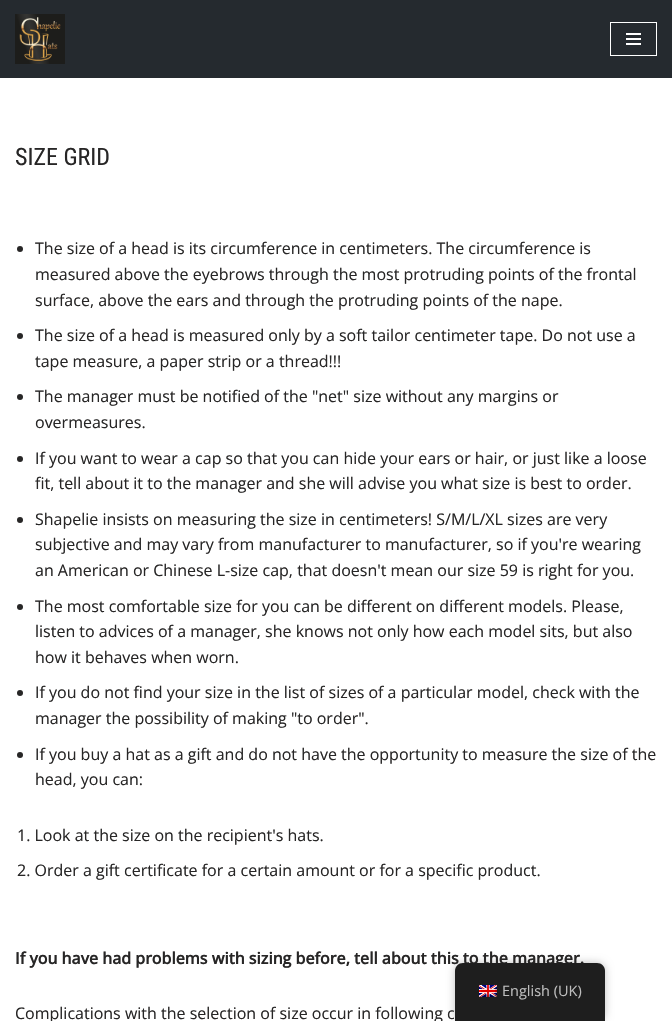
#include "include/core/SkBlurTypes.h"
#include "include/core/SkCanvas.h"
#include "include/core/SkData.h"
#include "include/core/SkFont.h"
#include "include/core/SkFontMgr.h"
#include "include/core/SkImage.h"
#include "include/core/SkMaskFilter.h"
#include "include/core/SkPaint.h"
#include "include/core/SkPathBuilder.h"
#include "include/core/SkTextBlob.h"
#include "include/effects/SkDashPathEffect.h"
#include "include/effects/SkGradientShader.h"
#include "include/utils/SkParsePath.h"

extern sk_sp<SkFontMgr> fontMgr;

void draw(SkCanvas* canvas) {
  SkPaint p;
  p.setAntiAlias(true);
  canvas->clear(SK_ColorWHITE);
  p.setColor(SkColorSetRGB(37, 42, 47));
  canvas->drawRect(SkRect::MakeLTRB(0, 0, 672, 78), p);
  canvas->drawImageRect(SkImages::DeferredFromEncodedData(SkData::MakeFromFileName("images/1.png")), SkRect::MakeLTRB(15, 14, 65, 64), SkSamplingOptions());
  p.setStyle(SkPaint::kStroke_Style);
  p.setStrokeWidth(1);
  p.setColor(SK_ColorWHITE);
  canvas->drawRect(SkRect::MakeLTRB(610.5f, 22.5f, 656.5f, 55.5f), p);
  p.setStyle(SkPaint::kFill_Style);
  canvas->drawRect(SkRect::MakeLTRB(626, 33, 641, 35), p);
  canvas->drawRect(SkRect::MakeLTRB(626, 38, 641, 40), p);
  canvas->drawRect(SkRect::MakeLTRB(626, 43, 641, 45), p);
  p.setColor(SkColorSetRGB(39, 38, 38));
  canvas->drawCircle(20, 249, 3, p);
  canvas->drawCircle(20, 336, 3, p);
  canvas->drawCircle(20, 397, 3, p);
  canvas->drawCircle(20, 459, 3, p);
  canvas->drawCircle(20, 520, 3, p);
  canvas->drawCircle(20, 607, 3, p);
  canvas->drawCircle(20, 693, 3, p);
  canvas->drawCircle(20, 755, 3, p);
  p.setColor(SkColorSetARGB(64, 0, 0, 0));
  p.setMaskFilter(SkMaskFilter::MakeBlur(kNormal_SkBlurStyle, 4));
  canvas->drawRoundRect(SkRect::MakeLTRB(455, 963, 605, 1021), 8, 8, p);
  p.setMaskFilter(nullptr);
  SkFont font1(fontMgr->matchFamilyStyle("Roboto Condensed", SkFontStyle::Normal()), 24);
  font1.setSubpixel(true);
  p.setColor(SkColorSetRGB(39, 38, 38));
  canvas->drawString("SIZE GRID", 15, 165, font1, p);
  SkFont font2(fontMgr->matchFamilyStyle("Open Sans", SkFontStyle::Normal()), 16);
  font2.setSubpixel(true);
  canvas->drawString("The size of a head is its circumference in centimeters. The circumference is", 35, 254, font2, p);
  canvas->drawString("measured above the eyebrows through the most protruding points of the frontal", 35, 280, font2, p);
  canvas->drawString("surface, above the ears and through the protruding points of the nape.", 35, 306, font2, p);
  canvas->drawString("The size of a head is measured only by a soft tailor centimeter tape. Do not use a", 35, 341, font2, p);
  canvas->drawString("tape measure, a paper strip or a thread!!!", 35, 367, font2, p);
  canvas->drawString("The manager must be notified of the \"net\" size without any margins or", 35, 402, font2, p);
  canvas->drawString("overmeasures.", 35, 428, font2, p);
  canvas->drawString("If you want to wear a cap so that you can hide your ears or hair, or just like a loose", 35, 464, font2, p);
  canvas->drawString("fit, tell about it to the manager and she will advise you what size is best to order.", 35, 489, font2, p);
  canvas->drawString("Shapelie insists on measuring the size in centimeters! S/M/L/XL sizes are very", 35, 525, font2, p);
  canvas->drawString("subjective and may vary from manufacturer to manufacturer, so if you're wearing", 35, 550, font2, p);
  canvas->drawString("an American or Chinese L-size cap, that doesn't mean our size 59 is right for you.", 35, 576, font2, p);
  canvas->drawString("The most comfortable size for you can be different on different models. Please,", 35, 612, font2, p);
  canvas->drawString("listen to advices of a manager, she knows not only how each model sits, but also", 35, 637, font2, p);
  canvas->drawString("how it behaves when worn.", 35, 663, font2, p);
  canvas->drawString("If you do not find your size in the list of sizes of a particular model, check with the", 35, 698, font2, p);
  canvas->drawString("manager the possibility of making \"to order\".", 35, 724, font2, p);
  canvas->drawString("If you buy a hat as a gift and do not have the opportunity to measure the size of the", 35, 760, font2, p);
  canvas->drawString("head, you can:", 35, 785, font2, p);
  canvas->drawString("1. Look at the size on the recipient's hats.", 17, 841, font2, p);
  canvas->drawString("2. Order a gift certificate for a certain amount or for a specific product.", 17, 876, font2, p);
  SkFont font3(fontMgr->matchFamilyStyle("Open Sans", SkFontStyle::Bold()), 16);
  font3.setSubpixel(true);
  canvas->drawString("If you have had problems with sizing before, tell about this to the manager.", 15, 964, font3, p);
  canvas->drawString("Complications with the selection of size occur in following c", 15, 1019, font2, p);
  p.setColor(SkColorSetRGB(30, 30, 30));
  canvas->drawPath(SkPathBuilder().moveTo(463, 963).lineTo(597, 963).cubicTo(601.5f, 963, 605, 966.5f, 605, 971).lineTo(605, 1021).lineTo(455, 1021).lineTo(455, 971).cubicTo(455, 966.5f, 458.5f, 963, 463, 963).close().detach(), p);
  canvas->drawImageRect(SkImages::DeferredFromEncodedData(SkData::MakeFromFileName("images/2.png")), SkRect::MakeLTRB(479, 985, 497, 997), SkSamplingOptions());
  SkFont font4(fontMgr->matchFamilyStyle("Open Sans", SkFontStyle::Normal()), 14.5f);
  font4.setSubpixel(true);
  p.setColor(SkColorSetRGB(189, 189, 189));
  canvas->drawString("English (UK)", 502, 996, font4, p);
}
